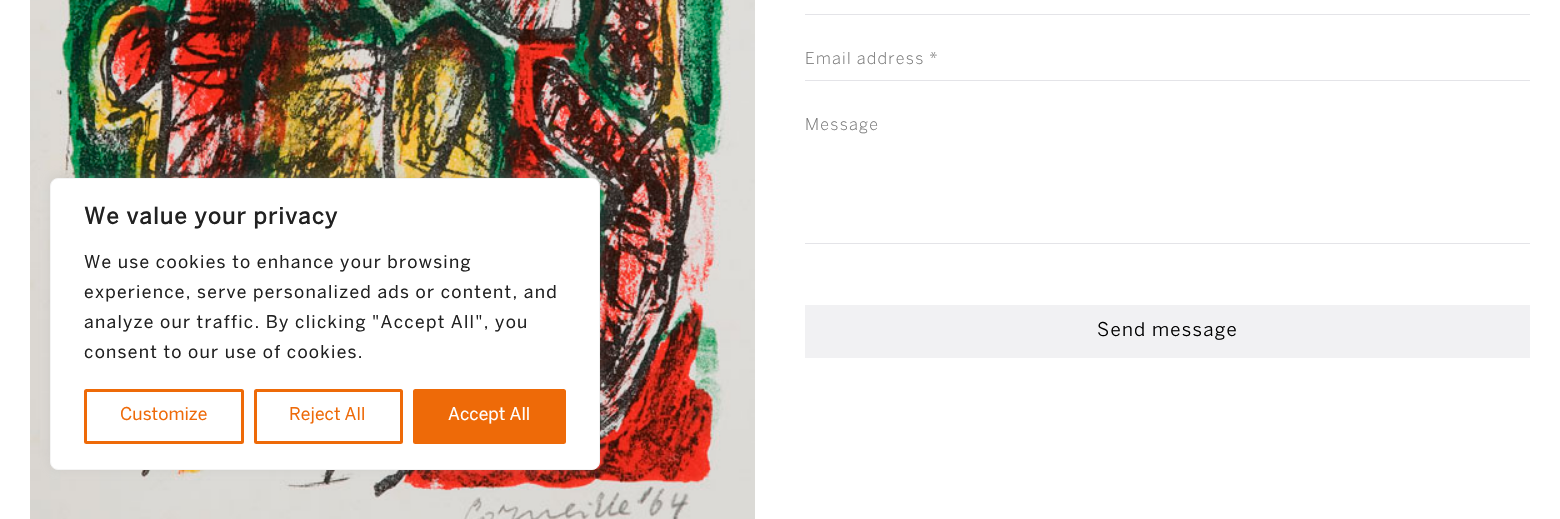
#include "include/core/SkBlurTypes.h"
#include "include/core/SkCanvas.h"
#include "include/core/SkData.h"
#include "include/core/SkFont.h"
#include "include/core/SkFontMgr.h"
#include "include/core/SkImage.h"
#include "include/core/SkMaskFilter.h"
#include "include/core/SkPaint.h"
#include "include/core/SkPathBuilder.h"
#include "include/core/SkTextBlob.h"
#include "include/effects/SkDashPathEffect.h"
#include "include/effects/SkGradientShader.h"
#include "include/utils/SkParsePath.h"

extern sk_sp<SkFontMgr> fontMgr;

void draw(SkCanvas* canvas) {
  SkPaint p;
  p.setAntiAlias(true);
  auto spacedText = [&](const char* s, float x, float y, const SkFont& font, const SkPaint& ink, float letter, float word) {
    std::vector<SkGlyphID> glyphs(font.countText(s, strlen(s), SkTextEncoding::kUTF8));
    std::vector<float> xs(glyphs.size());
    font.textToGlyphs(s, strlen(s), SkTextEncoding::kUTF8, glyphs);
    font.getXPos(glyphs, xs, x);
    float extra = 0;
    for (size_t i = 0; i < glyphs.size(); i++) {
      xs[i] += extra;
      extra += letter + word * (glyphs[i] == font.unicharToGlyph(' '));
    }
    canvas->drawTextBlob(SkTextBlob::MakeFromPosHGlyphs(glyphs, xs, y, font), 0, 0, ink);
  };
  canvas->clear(SK_ColorWHITE);
  canvas->drawImageRect(SkImages::DeferredFromEncodedData(SkData::MakeFromFileName("images/1.png")), SkRect::MakeLTRB(30, 0, 755, 519), SkSamplingOptions());
  p.setColor(SkColorSetARGB(77, 172, 171, 171));
  p.setMaskFilter(SkMaskFilter::MakeBlur(kNormal_SkBlurStyle, 6));
  canvas->drawRoundRect(SkRect::MakeLTRB(50, 176, 600, 469), 8, 8, p);
  p.setMaskFilter(nullptr);
  p.setColor(SK_ColorWHITE);
  canvas->drawRoundRect(SkRect::MakeLTRB(50.5f, 178.5f, 599.5f, 469.5f), 7.5f, 7.5f, p);
  p.setStyle(SkPaint::kStroke_Style);
  p.setStrokeWidth(1);
  p.setColor(SkColorSetRGB(244, 244, 244));
  canvas->drawRoundRect(SkRect::MakeLTRB(50.5f, 178.5f, 599.5f, 469.5f), 7.5f, 7.5f, p);
  p.setStrokeWidth(3);
  p.setColor(SkColorSetRGB(238, 106, 8));
  canvas->drawRoundRect(SkRect::MakeLTRB(85.5f, 390.5f, 242.5f, 442.5f), 1, 1, p);
  canvas->drawRoundRect(SkRect::MakeLTRB(255.5f, 390.5f, 401.5f, 442.5f), 1, 1, p);
  p.setStyle(SkPaint::kFill_Style);
  canvas->drawRoundRect(SkRect::MakeLTRB(414.5f, 390.5f, 564.5f, 442.5f), 1, 1, p);
  p.setStyle(SkPaint::kStroke_Style);
  canvas->drawRoundRect(SkRect::MakeLTRB(414.5f, 390.5f, 564.5f, 442.5f), 1, 1, p);
  p.setStyle(SkPaint::kFill_Style);
  p.setColor(SkColorSetRGB(228, 228, 232));
  canvas->drawRect(SkRect::MakeLTRB(805, 14, 1530, 15), p);
  canvas->drawRect(SkRect::MakeLTRB(805, 80, 1530, 81), p);
  canvas->drawRect(SkRect::MakeLTRB(805, 243, 1530, 244), p);
  p.setColor(SkColorSetRGB(241, 241, 243));
  canvas->drawRect(SkRect::MakeLTRB(805, 305, 1530, 358), p);
  SkFont font1(fontMgr->matchFamilyStyle("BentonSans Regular", SkFontStyle::Bold()), 22.5f);
  font1.setSubpixel(true);
  p.setColor(SkColorSetRGB(33, 33, 33));
  spacedText("We value your privacy", 84, 224, font1, p, 1.25f, 0);
  SkFont font2(fontMgr->matchFamilyStyle("BentonSans Regular", SkFontStyle::Normal()), 17.5f);
  font2.setSubpixel(true);
  spacedText("We use cookies to enhance your browsing", 84, 268, font2, p, 1.25f, 0);
  spacedText("experience, serve personalized ads or content, and", 84, 298, font2, p, 1.25f, 0);
  spacedText("analyze our traffic. By clicking \"Accept All\", you", 84, 328, font2, p, 1.25f, 0);
  spacedText("consent to our use of cookies.", 84, 358, font2, p, 1.25f, 0);
  p.setColor(SkColorSetRGB(238, 106, 8));
  canvas->drawString("Customize", 120, 420, font2, p);
  canvas->drawString("Reject All", 289, 420, font2, p);
  p.setColor(SK_ColorWHITE);
  canvas->drawString("Accept All", 448, 420, font2, p);
  SkFont font3(fontMgr->matchFamilyStyle("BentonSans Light", SkFontStyle(300, SkFontStyle::kNormal_Width, SkFontStyle::kUpright_Slant)), 16.25f);
  font3.setSubpixel(true);
  p.setColor(SkColorSetRGB(117, 117, 117));
  spacedText("Email address *", 805, 64, font3, p, 1.25f, 0);
  spacedText("Message", 805, 130, font3, p, 1.25f, 0);
  SkFont font4(fontMgr->matchFamilyStyle("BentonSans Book", SkFontStyle::Normal()), 18.75f);
  font4.setSubpixel(true);
  p.setColor(SK_ColorBLACK);
  spacedText("Send message", 1097, 336, font4, p, 1.25f, 0);
}
